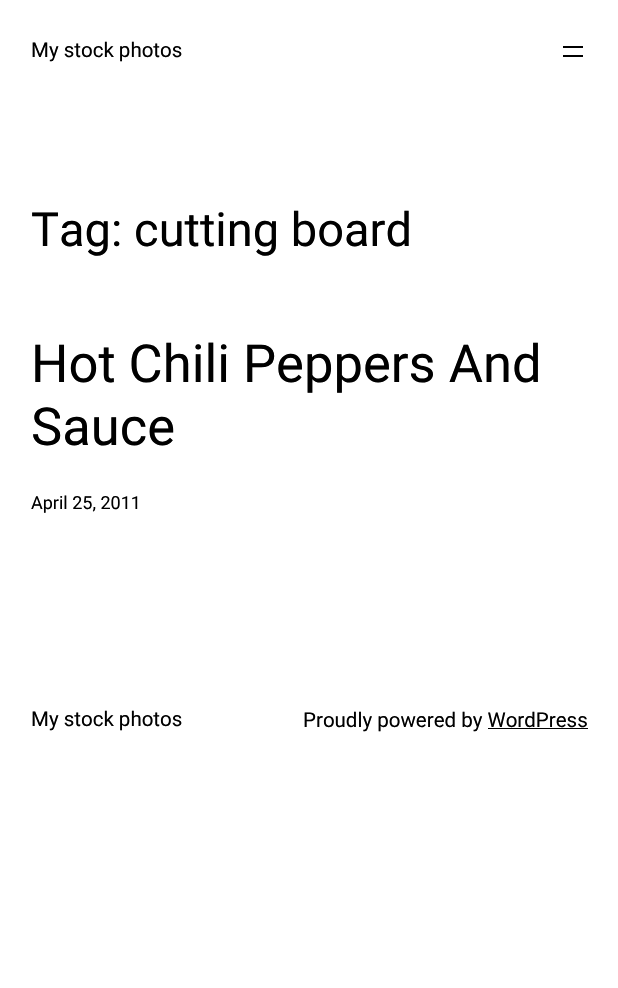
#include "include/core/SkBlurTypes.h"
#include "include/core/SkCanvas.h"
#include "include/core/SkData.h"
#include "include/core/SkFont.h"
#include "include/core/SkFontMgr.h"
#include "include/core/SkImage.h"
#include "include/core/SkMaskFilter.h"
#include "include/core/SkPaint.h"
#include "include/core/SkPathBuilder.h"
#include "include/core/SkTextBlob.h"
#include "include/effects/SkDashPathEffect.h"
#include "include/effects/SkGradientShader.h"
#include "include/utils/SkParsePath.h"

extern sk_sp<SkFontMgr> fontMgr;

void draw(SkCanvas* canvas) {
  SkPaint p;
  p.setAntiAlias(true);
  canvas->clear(SK_ColorWHITE);
  p.setColor(SK_ColorBLACK);
  canvas->drawRect(SkRect::MakeLTRB(563, 46, 583, 48), p);
  canvas->drawRect(SkRect::MakeLTRB(563, 55, 583, 57), p);
  canvas->drawRect(SkRect::MakeLTRB(488, 728, 588, 729), p);
  SkFont font1(fontMgr->matchFamilyStyle("Roboto", SkFontStyle::Normal()), 20.5f);
  font1.setSubpixel(true);
  canvas->drawString("My stock photos", 31, 57, font1, p);
  SkFont font2(fontMgr->matchFamilyStyle("Roboto", SkFontStyle::Normal()), 47);
  font2.setSubpixel(true);
  canvas->drawString("Tag: cutting board", 31, 246, font2, p);
  SkFont font3(fontMgr->matchFamilyStyle("Roboto", SkFontStyle::Normal()), 52.5f);
  font3.setSubpixel(true);
  canvas->drawString("Hot Chili Peppers And", 31, 382, font3, p);
  canvas->drawString("Sauce", 31, 445, font3, p);
  SkFont font4(fontMgr->matchFamilyStyle("Roboto", SkFontStyle::Normal()), 18);
  font4.setSubpixel(true);
  canvas->drawString("April 25, 2011", 31, 509, font4, p);
  canvas->drawString("My stock photos", 31, 726, font1, p);
  canvas->drawString("Proudly powered by WordPress", 303, 727, font1, p);
}
